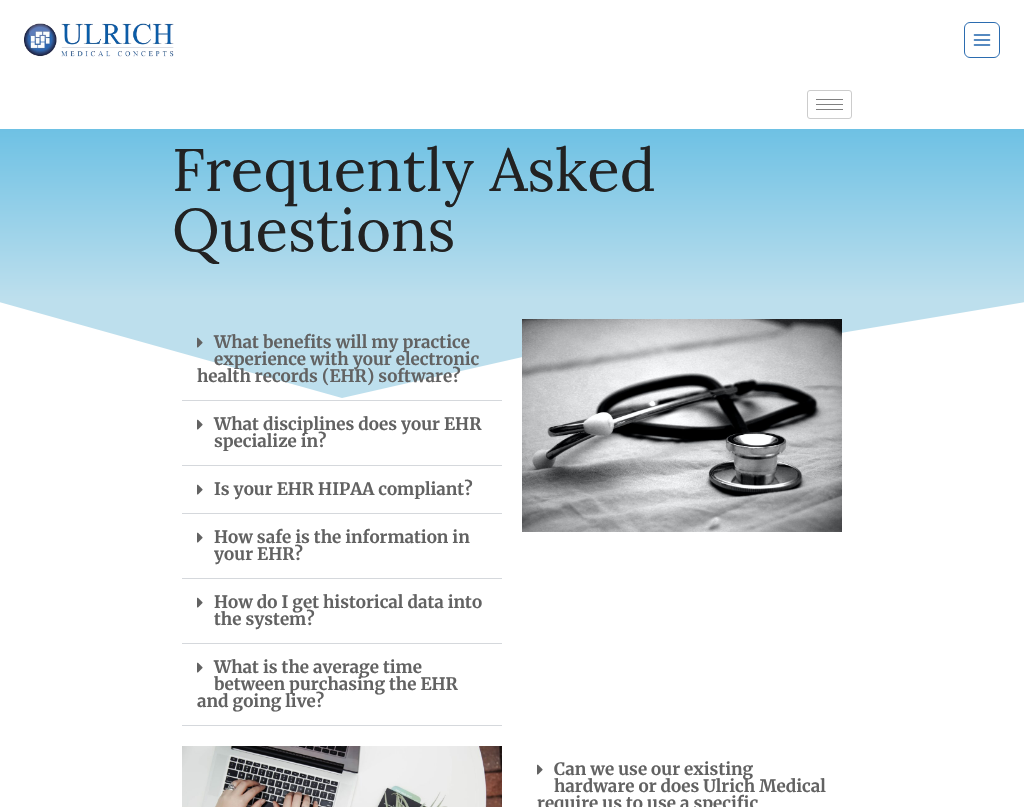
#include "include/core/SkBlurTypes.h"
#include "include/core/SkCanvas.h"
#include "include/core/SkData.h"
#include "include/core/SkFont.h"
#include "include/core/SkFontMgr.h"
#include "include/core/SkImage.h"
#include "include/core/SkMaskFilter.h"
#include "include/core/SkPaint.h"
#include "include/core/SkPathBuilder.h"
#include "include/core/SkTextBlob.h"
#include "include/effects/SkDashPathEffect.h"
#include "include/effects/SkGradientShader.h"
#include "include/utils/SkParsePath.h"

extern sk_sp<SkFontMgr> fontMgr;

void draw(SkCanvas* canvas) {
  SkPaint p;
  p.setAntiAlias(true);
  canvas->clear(SK_ColorWHITE);
  canvas->drawImageRect(SkImages::DeferredFromEncodedData(SkData::MakeFromFileName("images/1.png")), SkRect::MakeLTRB(24, 23, 174, 57), SkSamplingOptions());
  p.setStyle(SkPaint::kStroke_Style);
  p.setStrokeWidth(1);
  p.setColor(SkColorSetRGB(43, 108, 176));
  canvas->drawRoundRect(SkRect::MakeLTRB(964.5f, 22.5f, 999.5f, 57.5f), 5.5f, 5.5f, p);
  canvas->drawImageRect(SkImages::DeferredFromEncodedData(SkData::MakeFromFileName("images/2.png")), SkRect::MakeLTRB(973, 34, 991, 46), SkSamplingOptions());
  p.setColor(SkColorSetRGB(204, 204, 204));
  canvas->drawRoundRect(SkRect::MakeLTRB(807.5f, 90.5f, 851.5f, 118.5f), 2.5f, 2.5f, p);
  p.setStyle(SkPaint::kFill_Style);
  p.setColor(SkColorSetRGB(128, 128, 128));
  canvas->drawRect(SkRect::MakeLTRB(816, 99, 843, 100), p);
  canvas->drawRect(SkRect::MakeLTRB(816, 104, 843, 105), p);
  canvas->drawRect(SkRect::MakeLTRB(816, 109, 843, 110), p);
  {
    const SkColor colors[] = {SkColorSetRGB(110, 193, 228), SkColorSetRGB(189, 223, 237)};
    const float stops[] = {0, 1};
    const SkPoint ends[] = {{512, 129}, {512, 299}};
    p.setShader(SkGradientShader::MakeLinear(ends, colors, stops, 2, SkTileMode::kClamp));
    p.setAlpha(255);
  }
  canvas->drawRect(SkRect::MakeLTRB(0, 129, 1024, 298), p);
  p.setShader(nullptr);
  p.setColor(SkColorSetRGB(189, 223, 237));
  canvas->drawPath(SkPathBuilder().moveTo(781, 343).lineTo(659, 326).lineTo(342, 398).lineTo(-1, 302).lineTo(-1, 298).lineTo(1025, 298).lineTo(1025, 302).detach(), p);
  p.setColor(SkColorSetRGB(213, 216, 220));
  canvas->drawRect(SkRect::MakeLTRB(182, 400, 502, 401), p);
  canvas->drawImageRect(SkImages::DeferredFromEncodedData(SkData::MakeFromFileName("images/3.png")), SkRect::MakeLTRB(197, 337, 203, 348), SkSamplingOptions());
  canvas->drawRect(SkRect::MakeLTRB(182, 465, 502, 466), p);
  canvas->drawImageRect(SkImages::DeferredFromEncodedData(SkData::MakeFromFileName("images/4.png")), SkRect::MakeLTRB(197, 419, 203, 430), SkSamplingOptions());
  canvas->drawRect(SkRect::MakeLTRB(182, 513, 502, 514), p);
  canvas->drawImageRect(SkImages::DeferredFromEncodedData(SkData::MakeFromFileName("images/4.png")), SkRect::MakeLTRB(197, 484, 203, 495), SkSamplingOptions());
  canvas->drawRect(SkRect::MakeLTRB(182, 578, 502, 579), p);
  canvas->drawImageRect(SkImages::DeferredFromEncodedData(SkData::MakeFromFileName("images/4.png")), SkRect::MakeLTRB(197, 532, 203, 543), SkSamplingOptions());
  canvas->drawRect(SkRect::MakeLTRB(182, 643, 502, 644), p);
  canvas->drawImageRect(SkImages::DeferredFromEncodedData(SkData::MakeFromFileName("images/4.png")), SkRect::MakeLTRB(197, 597, 203, 608), SkSamplingOptions());
  canvas->drawRect(SkRect::MakeLTRB(182, 725, 502, 726), p);
  canvas->drawImageRect(SkImages::DeferredFromEncodedData(SkData::MakeFromFileName("images/4.png")), SkRect::MakeLTRB(197, 662, 203, 673), SkSamplingOptions());
  canvas->drawImageRect(SkImages::DeferredFromEncodedData(SkData::MakeFromFileName("images/5.png")), SkRect::MakeLTRB(522, 319, 842, 532), SkSamplingOptions());
  canvas->drawImageRect(SkImages::DeferredFromEncodedData(SkData::MakeFromFileName("images/6.png")), SkRect::MakeLTRB(182, 746, 502, 807), SkSamplingOptions());
  canvas->drawImageRect(SkImages::DeferredFromEncodedData(SkData::MakeFromFileName("images/4.png")), SkRect::MakeLTRB(537, 764, 543, 775), SkSamplingOptions());
  SkFont font1(fontMgr->matchFamilyStyle("Lora", SkFontStyle::Normal()), 60);
  font1.setSubpixel(true);
  p.setColor(SkColorSetRGB(34, 34, 34));
  canvas->drawString("Frequently Asked", 172, 191, font1, p);
  canvas->drawString("Questions", 172, 251, font1, p);
  SkFont font2(fontMgr->matchFamilyStyle("Merriweather", SkFontStyle::Bold()), 17);
  font2.setSubpixel(true);
  p.setColor(SkColorSetRGB(98, 98, 98));
  canvas->drawString("What benefits will my practice", 214, 348, font2, p);
  canvas->drawString("experience with your electronic", 214, 365, font2, p);
  canvas->drawString("health records (EHR) software?", 197, 382, font2, p);
  canvas->drawString("What disciplines does your EHR", 214, 430, font2, p);
  canvas->drawString("specialize in?", 214, 447, font2, p);
  canvas->drawString("Is your EHR HIPAA compliant?", 214, 495, font2, p);
  canvas->drawString("How safe is the information in", 214, 543, font2, p);
  canvas->drawString("your EHR?", 214, 560, font2, p);
  canvas->drawString("How do I get historical data into", 214, 608, font2, p);
  canvas->drawString("the system?", 214, 625, font2, p);
  canvas->drawString("What is the average time", 214, 673, font2, p);
  canvas->drawString("between purchasing the EHR", 214, 690, font2, p);
  canvas->drawString("and going live?", 197, 707, font2, p);
  canvas->drawString("Can we use our existing", 554, 775, font2, p);
  canvas->drawString("hardware or does Ulrich Medical", 554, 792, font2, p);
  canvas->drawString("require us to use a specific", 537, 809, font2, p);
}
